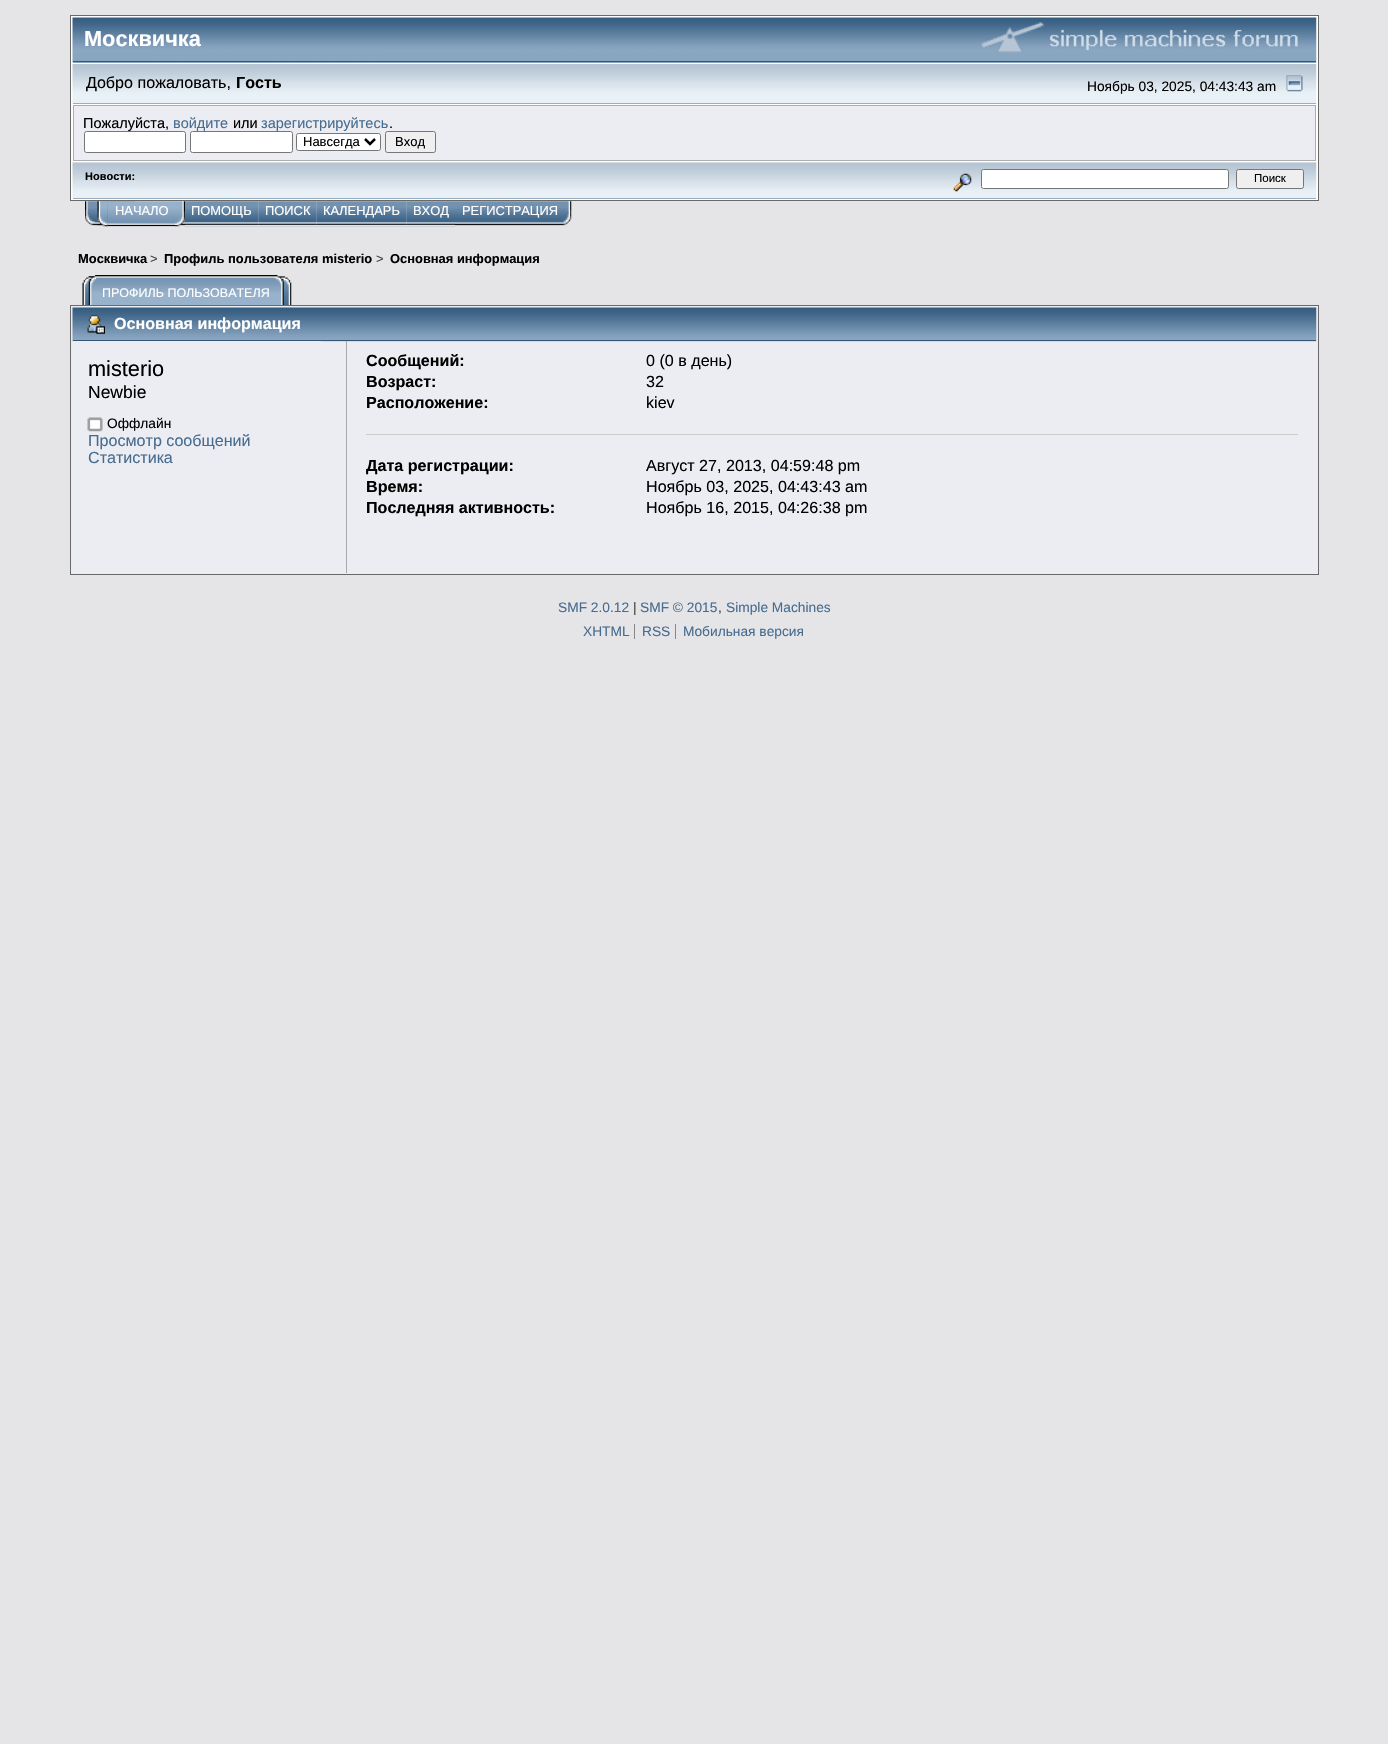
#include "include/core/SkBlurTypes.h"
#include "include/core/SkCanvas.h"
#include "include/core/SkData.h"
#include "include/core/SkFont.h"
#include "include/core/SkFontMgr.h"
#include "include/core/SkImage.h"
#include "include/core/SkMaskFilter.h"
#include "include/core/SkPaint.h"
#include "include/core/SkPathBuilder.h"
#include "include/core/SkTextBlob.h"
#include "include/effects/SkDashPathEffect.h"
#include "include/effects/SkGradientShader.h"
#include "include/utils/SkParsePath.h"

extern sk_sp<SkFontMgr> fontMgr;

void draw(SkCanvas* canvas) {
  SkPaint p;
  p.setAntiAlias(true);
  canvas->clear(SkColorSetRGB(229, 229, 232));
  p.setColor(SK_ColorWHITE);
  canvas->drawRect(SkRect::MakeLTRB(70.5f, 15.5f, 1318.5f, 200.5f), p);
  p.setStyle(SkPaint::kStroke_Style);
  p.setStrokeWidth(1);
  p.setColor(SkColorSetRGB(105, 105, 105));
  canvas->drawRect(SkRect::MakeLTRB(70.5f, 15.5f, 1318.5f, 200.5f), p);
  p.setStyle(SkPaint::kFill_Style);
  p.setColor(SkColorSetRGB(136, 166, 192));
  canvas->drawRect(SkRect::MakeLTRB(73, 62, 1316, 63), p);
  canvas->drawImageRect(SkImages::DeferredFromEncodedData(SkData::MakeFromFileName("images/1.png")), SkRect::MakeLTRB(72, 17, 1317, 63), SkSamplingOptions());
  p.setColor(SkColorSetRGB(55, 85, 118));
  canvas->drawRect(SkRect::MakeLTRB(73, 61, 1316, 62), p);
  canvas->drawImageRect(SkImages::DeferredFromEncodedData(SkData::MakeFromFileName("images/2.png")), SkRect::MakeLTRB(981, 22, 1298, 53), SkSamplingOptions());
  canvas->drawImageRect(SkImages::DeferredFromEncodedData(SkData::MakeFromFileName("images/3.png")), SkRect::MakeLTRB(72, 63, 1317, 104), SkSamplingOptions());
  p.setColor(SK_ColorWHITE);
  canvas->drawRect(SkRect::MakeLTRB(73, 63, 1316, 64), p);
  p.setColor(SkColorSetRGB(155, 174, 191));
  canvas->drawRect(SkRect::MakeLTRB(73, 103, 1316, 104), p);
  canvas->drawImageRect(SkImages::DeferredFromEncodedData(SkData::MakeFromFileName("images/4.png")), SkRect::MakeLTRB(1286, 75, 1303, 92), SkSamplingOptions());
  p.setColor(SkColorSetRGB(173, 173, 173));
  canvas->drawRect(SkRect::MakeLTRB(73, 105, 1316, 161), p);
  p.setColor(SkColorSetRGB(236, 237, 243));
  canvas->drawRect(SkRect::MakeLTRB(74, 106, 1315, 160), p);
  p.setColor(SK_ColorWHITE);
  canvas->drawRoundRect(SkRect::MakeLTRB(84.5f, 131.5f, 185.5f, 152.5f), 2, 2, p);
  p.setStyle(SkPaint::kStroke_Style);
  p.setColor(SkColorSetRGB(118, 118, 118));
  canvas->drawRoundRect(SkRect::MakeLTRB(84.5f, 131.5f, 185.5f, 152.5f), 2, 2, p);
  p.setStyle(SkPaint::kFill_Style);
  p.setColor(SK_ColorWHITE);
  canvas->drawRoundRect(SkRect::MakeLTRB(190.5f, 131.5f, 292.5f, 152.5f), 2, 2, p);
  p.setStyle(SkPaint::kStroke_Style);
  p.setColor(SkColorSetRGB(118, 118, 118));
  canvas->drawRoundRect(SkRect::MakeLTRB(190.5f, 131.5f, 292.5f, 152.5f), 2, 2, p);
  p.setStyle(SkPaint::kFill_Style);
  p.setColor(SK_ColorWHITE);
  canvas->drawRoundRect(SkRect::MakeLTRB(296.5f, 133.5f, 380.5f, 150.5f), 2, 2, p);
  p.setStyle(SkPaint::kStroke_Style);
  p.setColor(SkColorSetRGB(118, 118, 118));
  canvas->drawRoundRect(SkRect::MakeLTRB(296.5f, 133.5f, 380.5f, 150.5f), 2, 2, p);
  p.setStrokeWidth(2.5f);
  p.setColor(SK_ColorBLACK);
  canvas->drawPath(SkPathBuilder().moveTo(365, 139).lineTo(370, 144).lineTo(375, 139).detach(), p);
  p.setStyle(SkPaint::kFill_Style);
  p.setColor(SkColorSetRGB(239, 239, 239));
  canvas->drawRoundRect(SkRect::MakeLTRB(385.5f, 131.5f, 435.5f, 152.5f), 2, 2, p);
  p.setStyle(SkPaint::kStroke_Style);
  p.setStrokeWidth(1);
  p.setColor(SkColorSetRGB(118, 118, 118));
  canvas->drawRoundRect(SkRect::MakeLTRB(385.5f, 131.5f, 435.5f, 152.5f), 2, 2, p);
  p.setStyle(SkPaint::kFill_Style);
  p.setColor(SkColorSetRGB(233, 240, 246));
  canvas->drawRect(SkRect::MakeLTRB(73, 162, 1316, 163), p);
  canvas->drawImageRect(SkImages::DeferredFromEncodedData(SkData::MakeFromFileName("images/5.png")), SkRect::MakeLTRB(72, 162, 1317, 199), SkSamplingOptions());
  p.setColor(SkColorSetRGB(155, 174, 191));
  canvas->drawRect(SkRect::MakeLTRB(73, 198, 1316, 199), p);
  canvas->drawImageRect(SkImages::DeferredFromEncodedData(SkData::MakeFromFileName("images/6.png")), SkRect::MakeLTRB(953, 173, 972, 192), SkSamplingOptions());
  p.setColor(SK_ColorWHITE);
  canvas->drawRoundRect(SkRect::MakeLTRB(981.5f, 169.5f, 1228.5f, 188.5f), 2, 2, p);
  p.setStyle(SkPaint::kStroke_Style);
  p.setColor(SkColorSetRGB(118, 118, 118));
  canvas->drawRoundRect(SkRect::MakeLTRB(981.5f, 169.5f, 1228.5f, 188.5f), 2, 2, p);
  p.setStyle(SkPaint::kFill_Style);
  p.setColor(SkColorSetRGB(239, 239, 239));
  canvas->drawRoundRect(SkRect::MakeLTRB(1236.5f, 169.5f, 1303.5f, 188.5f), 2, 2, p);
  p.setStyle(SkPaint::kStroke_Style);
  p.setColor(SkColorSetRGB(118, 118, 118));
  canvas->drawRoundRect(SkRect::MakeLTRB(1236.5f, 169.5f, 1303.5f, 188.5f), 2, 2, p);
  canvas->drawImageRect(SkImages::DeferredFromEncodedData(SkData::MakeFromFileName("images/7.png")), SkRect::MakeLTRB(85, 201, 135, 226), SkSamplingOptions());
  canvas->drawImageRect(SkImages::DeferredFromEncodedData(SkData::MakeFromFileName("images/8.png")), SkRect::MakeLTRB(175, 201, 185, 227), SkSamplingOptions());
  canvas->drawImageRect(SkImages::DeferredFromEncodedData(SkData::MakeFromFileName("images/9.png")), SkRect::MakeLTRB(97, 201, 108, 227), SkSamplingOptions());
  canvas->drawImageRect(SkImages::DeferredFromEncodedData(SkData::MakeFromFileName("images/10.png")), SkRect::MakeLTRB(107, 201, 175, 227), SkSamplingOptions());
  canvas->drawImageRect(SkImages::DeferredFromEncodedData(SkData::MakeFromFileName("images/11.png")), SkRect::MakeLTRB(185, 201, 259, 227), SkSamplingOptions());
  canvas->drawImageRect(SkImages::DeferredFromEncodedData(SkData::MakeFromFileName("images/12.png")), SkRect::MakeLTRB(258, 201, 317, 227), SkSamplingOptions());
  canvas->drawImageRect(SkImages::DeferredFromEncodedData(SkData::MakeFromFileName("images/13.png")), SkRect::MakeLTRB(316, 201, 407, 227), SkSamplingOptions());
  canvas->drawImageRect(SkImages::DeferredFromEncodedData(SkData::MakeFromFileName("images/14.png")), SkRect::MakeLTRB(406, 201, 455, 227), SkSamplingOptions());
  canvas->drawImageRect(SkImages::DeferredFromEncodedData(SkData::MakeFromFileName("images/15.png")), SkRect::MakeLTRB(455, 201, 572, 226), SkSamplingOptions());
  canvas->drawImageRect(SkImages::DeferredFromEncodedData(SkData::MakeFromFileName("images/16.png")), SkRect::MakeLTRB(82, 276, 96, 305), SkSamplingOptions());
  canvas->drawImageRect(SkImages::DeferredFromEncodedData(SkData::MakeFromFileName("images/17.png")), SkRect::MakeLTRB(88, 275, 97, 305), SkSamplingOptions());
  canvas->drawImageRect(SkImages::DeferredFromEncodedData(SkData::MakeFromFileName("images/18.png")), SkRect::MakeLTRB(96, 275, 292, 305), SkSamplingOptions());
  p.setStyle(SkPaint::kFill_Style);
  p.setColor(SkColorSetRGB(236, 237, 243));
  canvas->drawRect(SkRect::MakeLTRB(70.5f, 305.5f, 1318.5f, 574.5f), p);
  p.setStyle(SkPaint::kStroke_Style);
  p.setColor(SkColorSetRGB(105, 105, 105));
  canvas->drawRect(SkRect::MakeLTRB(70.5f, 305.5f, 1318.5f, 574.5f), p);
  p.setStyle(SkPaint::kFill_Style);
  p.setColor(SkColorSetRGB(170, 170, 170));
  canvas->drawRect(SkRect::MakeLTRB(346, 341, 347, 573), p);
  canvas->drawImageRect(SkImages::DeferredFromEncodedData(SkData::MakeFromFileName("images/19.png")), SkRect::MakeLTRB(72, 307, 1317, 342), SkSamplingOptions());
  p.setColor(SkColorSetRGB(55, 85, 118));
  canvas->drawRect(SkRect::MakeLTRB(73, 340, 1316, 341), p);
  canvas->drawImageRect(SkImages::DeferredFromEncodedData(SkData::MakeFromFileName("images/20.png")), SkRect::MakeLTRB(87, 314, 105, 334), SkSamplingOptions());
  p.setColor(SkColorSetRGB(236, 237, 243));
  canvas->drawRect(SkRect::MakeLTRB(73, 341, 321, 342), p);
  canvas->drawImageRect(SkImages::DeferredFromEncodedData(SkData::MakeFromFileName("images/21.png")), SkRect::MakeLTRB(87, 417, 103, 432), SkSamplingOptions());
  p.setColor(SkColorSetRGB(204, 204, 204));
  canvas->drawRect(SkRect::MakeLTRB(366, 434, 1298, 435), p);
  p.setColor(SkColorSetRGB(136, 136, 136));
  canvas->drawRect(SkRect::MakeLTRB(634, 624, 635, 639), p);
  canvas->drawRect(SkRect::MakeLTRB(675, 624, 676, 639), p);
  SkFont font1(fontMgr->matchFamilyStyle("Liberation Sans", SkFontStyle::Bold()), 21.75f);
  font1.setSubpixel(true);
  p.setColor(SK_ColorWHITE);
  canvas->drawString("Москвичка", 84, 46, font1, p);
  SkFont font2(fontMgr->matchFamilyStyle("Liberation Sans", SkFontStyle::Normal()), 16.1f);
  font2.setSubpixel(true);
  p.setColor(SK_ColorBLACK);
  canvas->drawString("Добро пожаловать,", 86, 88, font2, p);
  SkFont font3(fontMgr->matchFamilyStyle("Liberation Sans", SkFontStyle::Bold()), 16.1f);
  font3.setSubpixel(true);
  canvas->drawString("Гость", 236, 88, font3, p);
  SkFont font4(fontMgr->matchFamilyStyle("Liberation Sans", SkFontStyle::Normal()), 13.75f);
  font4.setSubpixel(true);
  canvas->drawString("Ноябрь 03, 2025, 04:43:43 am", 1087, 91, font4, p);
  SkFont font5(fontMgr->matchFamilyStyle("Liberation Sans", SkFontStyle::Normal()), 14.5f);
  font5.setSubpixel(true);
  canvas->drawString("Пожалуйста,", 83, 128, font5, p);
  p.setColor(SkColorSetRGB(71, 108, 142));
  canvas->drawString("войдите", 173, 128, font5, p);
  p.setColor(SK_ColorBLACK);
  canvas->drawString("или", 233, 128, font5, p);
  p.setColor(SkColorSetRGB(71, 108, 142));
  canvas->drawString("зарегистрируйтесь", 261, 128, font5, p);
  p.setColor(SK_ColorBLACK);
  canvas->drawString(".", 389, 128, font5, p);
  SkFont font6(fontMgr->matchFamilyStyle("Liberation Sans", SkFontStyle::Normal()), 13);
  font6.setSubpixel(true);
  canvas->drawString("Навсегда", 303, 146, font6, p);
  canvas->drawString("Вход", 395, 146, font6, p);
  SkFont font7(fontMgr->matchFamilyStyle("Liberation Sans", SkFontStyle::Bold()), 11);
  font7.setSubpixel(true);
  canvas->drawString("Новости:", 85, 180, font7, p);
  SkFont font8(fontMgr->matchFamilyStyle("Liberation Sans", SkFontStyle::Normal()), 11.5f);
  font8.setSubpixel(true);
  canvas->drawString("Поиск", 1254, 182, font8, p);
  SkFont font9(fontMgr->matchFamilyStyle("Liberation Sans", SkFontStyle::Normal()), 12.9f);
  font9.setSubpixel(true);
  p.setColor(SK_ColorWHITE);
  canvas->drawString("НАЧАЛО", 115, 215, font9, p);
  canvas->drawString("ПОМОЩЬ", 191, 215, font9, p);
  canvas->drawString("ПОИСК", 265, 215, font9, p);
  canvas->drawString("КАЛЕНДАРЬ", 323, 215, font9, p);
  canvas->drawString("ВХОД", 413, 215, font9, p);
  canvas->drawString("РЕГИСТРАЦИЯ", 462, 215, font9, p);
  SkFont font10(fontMgr->matchFamilyStyle("Liberation Sans", SkFontStyle::Bold()), 12.9f);
  font10.setSubpixel(true);
  p.setColor(SK_ColorBLACK);
  canvas->drawString("Москвичка", 78, 263, font10, p);
  p.setColor(SkColorSetRGB(68, 68, 68));
  canvas->drawString(">", 150, 263, font9, p);
  p.setColor(SK_ColorBLACK);
  canvas->drawString("Профиль пользователя misterio", 164, 263, font10, p);
  p.setColor(SkColorSetRGB(68, 68, 68));
  canvas->drawString(">", 376, 263, font9, p);
  p.setColor(SK_ColorBLACK);
  canvas->drawString("Основная информация", 390, 263, font10, p);
  SkFont font11(fontMgr->matchFamilyStyle("Liberation Sans", SkFontStyle::Normal()), 12.5f);
  font11.setSubpixel(true);
  p.setColor(SK_ColorWHITE);
  canvas->drawString("ПРОФИЛЬ ПОЛЬЗОВАТЕЛЯ", 102, 297, font11, p);
  canvas->drawString("Основная информация", 114, 329, font3, p);
  SkFont font12(fontMgr->matchFamilyStyle("Liberation Sans", SkFontStyle::Normal()), 21.75f);
  font12.setSubpixel(true);
  p.setColor(SK_ColorBLACK);
  canvas->drawString("misterio", 88, 376, font12, p);
  SkFont font13(fontMgr->matchFamilyStyle("Liberation Sans", SkFontStyle::Normal()), 17.5f);
  font13.setSubpixel(true);
  canvas->drawString("Newbie", 88, 398, font13, p);
  canvas->drawString("Оффлайн", 107, 428, font4, p);
  p.setColor(SkColorSetRGB(71, 108, 142));
  canvas->drawString("Просмотр сообщений", 88, 446, font2, p);
  canvas->drawString("Статистика", 88, 463, font2, p);
  p.setColor(SK_ColorBLACK);
  canvas->drawString("Сообщений:", 366, 366, font3, p);
  canvas->drawString("0 (0 в день)", 646, 366, font2, p);
  canvas->drawString("Возраст:", 366, 387, font3, p);
  canvas->drawString("32", 646, 387, font2, p);
  canvas->drawString("Расположение:", 366, 408, font3, p);
  canvas->drawString("kiev", 646, 408, font2, p);
  canvas->drawString("Дата регистрации:", 366, 471, font3, p);
  canvas->drawString("Август 27, 2013, 04:59:48 pm", 646, 471, font2, p);
  canvas->drawString("Время:", 366, 492, font3, p);
  canvas->drawString("Ноябрь 03, 2025, 04:43:43 am", 646, 492, font2, p);
  canvas->drawString("Последняя активность:", 366, 513, font3, p);
  canvas->drawString("Ноябрь 16, 2015, 04:26:38 pm", 646, 513, font2, p);
  p.setColor(SkColorSetRGB(71, 108, 142));
  canvas->drawString("SMF 2.0.12", 558, 612, font4, p);
  p.setColor(SkColorSetRGB(68, 68, 68));
  canvas->drawString("|", 633, 612, font4, p);
  p.setColor(SkColorSetRGB(71, 108, 142));
  canvas->drawString("SMF © 2015", 640, 612, font4, p);
  p.setColor(SkColorSetRGB(68, 68, 68));
  canvas->drawString(",", 718, 612, font4, p);
  p.setColor(SkColorSetRGB(71, 108, 142));
  canvas->drawString("Simple Machines", 726, 612, font4, p);
  canvas->drawString("XHTML", 583, 636, font4, p);
  canvas->drawString("RSS", 642, 636, font4, p);
  canvas->drawString("Мобильная версия", 683, 636, font4, p);
}
